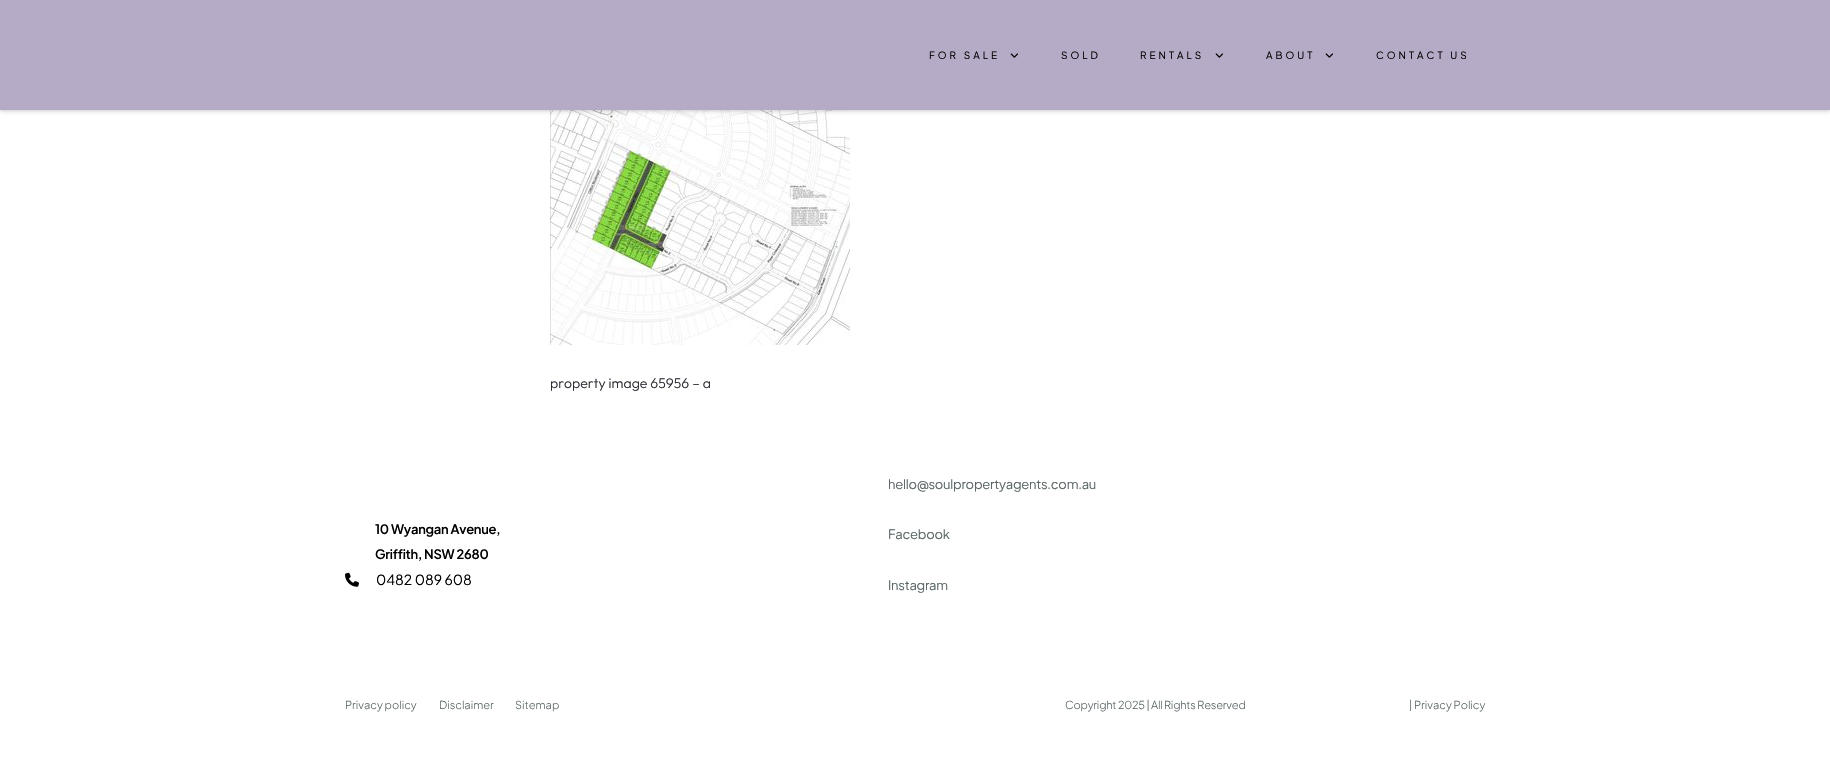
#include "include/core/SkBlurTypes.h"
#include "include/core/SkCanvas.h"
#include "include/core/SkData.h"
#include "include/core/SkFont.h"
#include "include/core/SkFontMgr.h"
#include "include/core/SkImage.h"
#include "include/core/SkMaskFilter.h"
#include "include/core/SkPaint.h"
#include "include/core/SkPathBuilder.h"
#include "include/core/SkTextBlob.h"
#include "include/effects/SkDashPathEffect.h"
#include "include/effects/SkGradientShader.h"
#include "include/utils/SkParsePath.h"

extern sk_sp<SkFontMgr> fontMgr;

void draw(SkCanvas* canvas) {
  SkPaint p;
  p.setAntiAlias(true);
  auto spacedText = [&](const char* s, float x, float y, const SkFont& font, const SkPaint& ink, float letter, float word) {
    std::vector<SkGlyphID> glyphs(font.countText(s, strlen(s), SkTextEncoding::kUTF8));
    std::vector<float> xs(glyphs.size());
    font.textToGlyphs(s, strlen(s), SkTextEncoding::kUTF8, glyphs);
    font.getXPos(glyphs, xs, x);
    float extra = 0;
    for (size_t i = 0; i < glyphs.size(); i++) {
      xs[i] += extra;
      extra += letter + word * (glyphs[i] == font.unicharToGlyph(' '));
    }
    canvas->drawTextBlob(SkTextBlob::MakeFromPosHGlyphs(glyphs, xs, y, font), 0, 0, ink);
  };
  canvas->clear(SK_ColorWHITE);
  canvas->drawImageRect(SkImages::DeferredFromEncodedData(SkData::MakeFromFileName("images/2.png")), SkRect::MakeLTRB(550, 110, 850, 345), SkSamplingOptions());
  p.setColor(SkColorSetARGB(77, 0, 0, 0));
  p.setMaskFilter(SkMaskFilter::MakeBlur(kNormal_SkBlurStyle, 2.5f));
  canvas->drawRect(SkRect::MakeLTRB(0, 0, 1830, 110), p);
  p.setMaskFilter(nullptr);
  p.setColor(SkColorSetRGB(182, 171, 199));
  canvas->drawRect(SkRect::MakeLTRB(0, 0, 1830, 110), p);
  canvas->drawImageRect(SkImages::DeferredFromEncodedData(SkData::MakeFromFileName("images/1.png")), SkRect::MakeLTRB(1010, 53, 1018, 58), SkSamplingOptions());
  canvas->drawImageRect(SkImages::DeferredFromEncodedData(SkData::MakeFromFileName("images/1.png")), SkRect::MakeLTRB(1215, 53, 1223, 58), SkSamplingOptions());
  canvas->drawImageRect(SkImages::DeferredFromEncodedData(SkData::MakeFromFileName("images/1.png")), SkRect::MakeLTRB(1325, 53, 1333, 58), SkSamplingOptions());
  canvas->drawImageRect(SkImages::DeferredFromEncodedData(SkData::MakeFromFileName("images/3.png")), SkRect::MakeLTRB(345, 572, 359, 587), SkSamplingOptions());
  SkFont font1(fontMgr->matchFamilyStyle("Plus Jakarta Sans", SkFontStyle::Normal()), 10);
  font1.setSubpixel(true);
  p.setColor(SK_ColorBLACK);
  spacedText("FOR SALE", 929, 59, font1, p, 3, 0);
  spacedText("SOLD", 1061, 59, font1, p, 3, 0);
  spacedText("RENTALS", 1140, 59, font1, p, 3, 0);
  spacedText("ABOUT", 1266, 59, font1, p, 3, 0);
  spacedText("CONTACT US", 1376, 59, font1, p, 3, 0);
  SkFont font2(fontMgr->matchFamilyStyle("Outfit", SkFontStyle(300, SkFontStyle::kNormal_Width, SkFontStyle::kUpright_Slant)), 14);
  font2.setSubpixel(true);
  p.setColor(SkColorSetRGB(44, 46, 52));
  canvas->drawString("property image 65956 – a", 550, 388, font2, p);
  SkFont font3(fontMgr->matchFamilyStyle("Plus Jakarta Sans", SkFontStyle(600, SkFontStyle::kNormal_Width, SkFontStyle::kUpright_Slant)), 13);
  font3.setSubpixel(true);
  p.setColor(SK_ColorBLACK);
  spacedText("10 Wyangan Avenue,", 375, 534, font3, p, -0.25f, 0);
  spacedText("Griffith, NSW 2680", 375, 559, font3, p, -0.25f, 0);
  SkFont font4(fontMgr->matchFamilyStyle("Plus Jakarta Sans", SkFontStyle::Normal()), 14);
  font4.setSubpixel(true);
  canvas->drawString("0482 089 608", 376, 585, font4, p);
  SkFont font5(fontMgr->matchFamilyStyle("Plus Jakarta Sans", SkFontStyle::Normal()), 13);
  font5.setSubpixel(true);
  p.setColor(SkColorSetRGB(92, 103, 104));
  spacedText("hello@soulpropertyagents.com.au", 888, 489, font5, p, -0.25f, 0);
  spacedText("Facebook", 888, 539, font5, p, -0.25f, 0);
  spacedText("Instagram", 888, 590, font5, p, -0.25f, 0);
  SkFont font6(fontMgr->matchFamilyStyle("Plus Jakarta Sans", SkFontStyle(300, SkFontStyle::kNormal_Width, SkFontStyle::kUpright_Slant)), 11);
  font6.setSubpixel(true);
  canvas->drawString("Privacy policy", 345, 709, font6, p);
  canvas->drawString("Disclaimer", 439, 709, font6, p);
  canvas->drawString("Sitemap", 515, 709, font6, p);
  spacedText("Copyright 2025 | All Rights Reserved", 1065, 709, font6, p, -0.2f, 0);
  canvas->drawString("| Privacy Policy", 1409, 709, font6, p);
}
